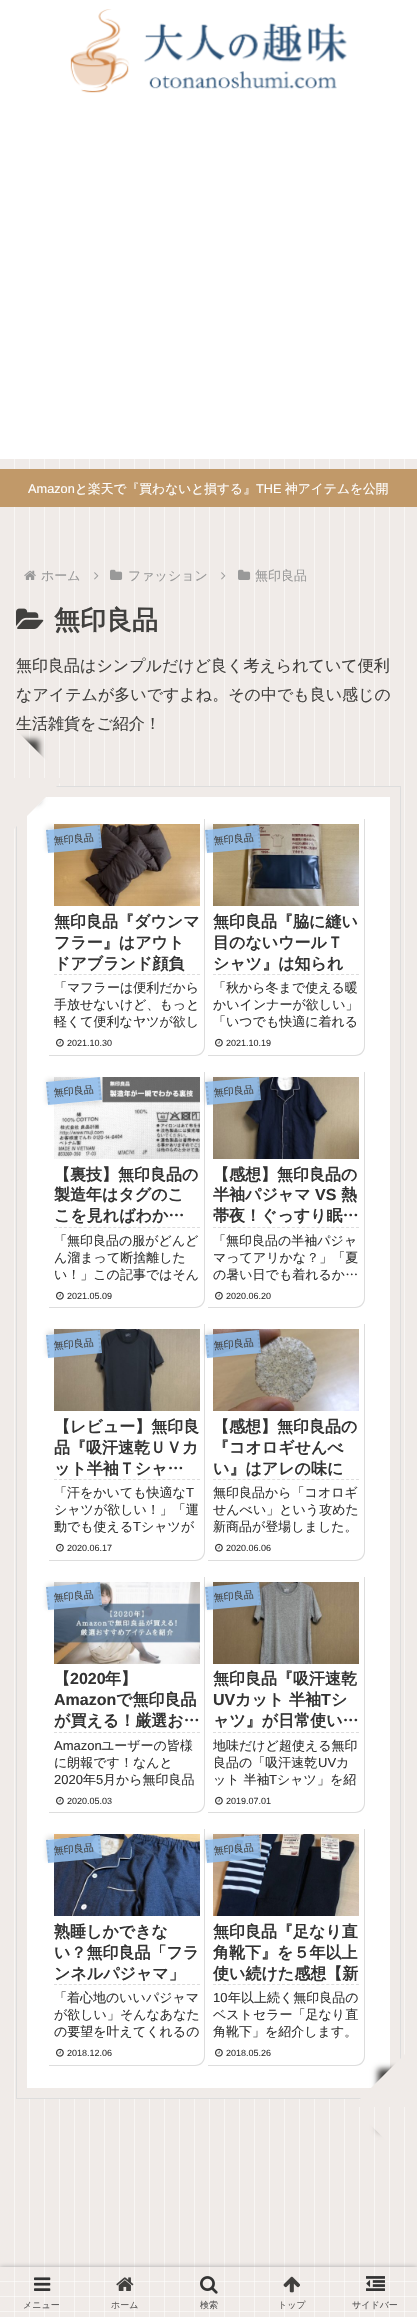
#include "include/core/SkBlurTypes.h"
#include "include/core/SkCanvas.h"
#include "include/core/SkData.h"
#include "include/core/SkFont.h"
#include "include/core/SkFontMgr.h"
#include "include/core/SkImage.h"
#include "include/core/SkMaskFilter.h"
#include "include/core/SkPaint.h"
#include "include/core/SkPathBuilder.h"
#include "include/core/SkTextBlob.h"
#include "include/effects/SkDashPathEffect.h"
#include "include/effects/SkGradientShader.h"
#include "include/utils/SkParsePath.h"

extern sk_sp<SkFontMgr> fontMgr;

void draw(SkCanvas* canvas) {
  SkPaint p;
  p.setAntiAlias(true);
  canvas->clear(SkColorSetRGB(240, 235, 232));
  canvas->drawImageRect(SkImages::DeferredFromEncodedData(SkData::MakeFromFileName("images/1.png")), SkRect::MakeLTRB(14, 459, 405, 2267), SkSamplingOptions());
  p.setColor(SK_ColorWHITE);
  canvas->drawRect(SkRect::MakeLTRB(0, 0, 417, 459), p);
  canvas->drawImageRect(SkImages::DeferredFromEncodedData(SkData::MakeFromFileName("images/2.png")), SkRect::MakeLTRB(70, 9, 347, 93), SkSamplingOptions());
  p.setColor(SkColorSetRGB(193, 153, 105));
  canvas->drawRect(SkRect::MakeLTRB(0, 469, 417, 507), p);
  canvas->drawImageRect(SkImages::DeferredFromEncodedData(SkData::MakeFromFileName("images/3.png")), SkRect::MakeLTRB(24, 570, 36, 580), SkSamplingOptions());
  canvas->drawImageRect(SkImages::DeferredFromEncodedData(SkData::MakeFromFileName("images/4.png")), SkRect::MakeLTRB(94, 572, 99, 580), SkSamplingOptions());
  canvas->drawImageRect(SkImages::DeferredFromEncodedData(SkData::MakeFromFileName("images/5.png")), SkRect::MakeLTRB(110, 569, 123, 580), SkSamplingOptions());
  canvas->drawImageRect(SkImages::DeferredFromEncodedData(SkData::MakeFromFileName("images/6.png")), SkRect::MakeLTRB(221, 572, 226, 580), SkSamplingOptions());
  canvas->drawImageRect(SkImages::DeferredFromEncodedData(SkData::MakeFromFileName("images/7.png")), SkRect::MakeLTRB(238, 569, 251, 580), SkSamplingOptions());
  canvas->drawImageRect(SkImages::DeferredFromEncodedData(SkData::MakeFromFileName("images/8.png")), SkRect::MakeLTRB(16, 608, 44, 629), SkSamplingOptions());
  p.setColor(SK_ColorWHITE);
  canvas->drawRect(SkRect::MakeLTRB(22, 792, 395, 2093), p);
  p.setStyle(SkPaint::kStroke_Style);
  p.setStrokeWidth(10);
  p.setColor(SkColorSetRGB(240, 235, 232));
  canvas->drawRect(SkRect::MakeLTRB(22, 792, 395, 2093), p);
  p.setStrokeWidth(1);
  p.setColor(SkColorSetRGB(221, 221, 221));
  canvas->drawRect(SkRect::MakeLTRB(16.5f, 786.5f, 400.5f, 2098.5f), p);
  canvas->save();
  canvas->clipPath(SkPathBuilder(SkPathFillType::kEvenOdd).moveTo(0, 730).lineTo(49, 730).lineTo(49, 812).lineTo(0, 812).close().moveTo(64.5f, 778.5f).lineTo(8, 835).lineTo(-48.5f, 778.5f).lineTo(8, 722).close().detach(), true);
  p.setStyle(SkPaint::kFill_Style);
  p.setColor(SkColorSetRGB(65, 64, 62));
  p.setMaskFilter(SkMaskFilter::MakeBlur(kNormal_SkBlurStyle, 3));
  canvas->drawRect(SkRect::MakeLTRB(-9, 740, 39, 802), p);
  p.setMaskFilter(nullptr);
  canvas->restore();
  p.setColor(SkColorSetRGB(221, 221, 221));
  canvas->drawPath(SkPathBuilder(SkPathFillType::kEvenOdd).moveTo(49, 819).lineTo(205, 819).lineTo(205, 1046).cubicTo(205, 1052, 201, 1056, 195, 1056).lineTo(49, 1056).close().moveTo(49, 819).lineTo(204, 819).lineTo(204, 1046).cubicTo(204, 1051, 200, 1055, 195, 1055).lineTo(49, 1055).close().detach(), p);
  p.setColor(SkColorSetRGB(240, 235, 232));
  canvas->drawPath(SkPathBuilder().moveTo(65, 778).lineTo(8, 835).lineTo(8, 778).close().detach(), p);
  canvas->drawImageRect(SkImages::DeferredFromEncodedData(SkData::MakeFromFileName("images/9.png")), SkRect::MakeLTRB(54, 824, 200, 906), SkSamplingOptions());
  canvas->save();
  canvas->clipPath(SkPathBuilder(SkPathFillType::kEvenOdd).moveTo(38, 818).lineTo(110, 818).lineTo(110, 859).lineTo(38, 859).close().moveTo(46, 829.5f).lineTo(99.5f, 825).lineTo(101.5f, 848).lineTo(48, 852.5f).close().detach(), true);
  p.setColor(SkColorSetARGB(51, 65, 64, 62));
  p.setMaskFilter(SkMaskFilter::MakeBlur(kNormal_SkBlurStyle, 2.5f));
  canvas->drawRect(SkRect::MakeLTRB(47, 827, 101, 850), p);
  p.setMaskFilter(nullptr);
  canvas->restore();
  p.setColor(SkColorSetARGB(230, 143, 187, 234));
  canvas->drawPath(SkPathBuilder().moveTo(46, 830).lineTo(100, 825).lineTo(102, 848).lineTo(48, 853).close().detach(), p);
  p.setStyle(SkPaint::kStroke_Style);
  p.setStrokeWidth(2);
  p.setColor(SkColorSetARGB(38, 65, 64, 62));
  p.setPathEffect(SkDashPathEffect::Make({{2, 2}}, 0));
  canvas->drawPath(SkPathBuilder().moveTo(98.5f, 825).lineTo(100.5f, 848).moveTo(47, 829.5f).lineTo(49, 852.5f).detach(), p);
  p.setPathEffect(nullptr);
  p.setStrokeWidth(1);
  p.setColor(SkColorSetRGB(221, 221, 221));
  p.setPathEffect(SkDashPathEffect::Make({{3, 1.93f}}, 0));
  canvas->drawPath(SkPathBuilder().moveTo(54, 974.5f).lineTo(200, 974.5f).detach(), p);
  p.setPathEffect(nullptr);
  canvas->drawImageRect(SkImages::DeferredFromEncodedData(SkData::MakeFromFileName("images/10.png")), SkRect::MakeLTRB(56, 1038, 64, 1047), SkSamplingOptions());
  p.setStyle(SkPaint::kFill_Style);
  canvas->drawPath(SkPathBuilder(SkPathFillType::kEvenOdd).moveTo(208, 819).lineTo(365, 819).lineTo(365, 1046).cubicTo(365, 1052, 361, 1056, 355, 1056).lineTo(208, 1056).close().moveTo(208, 819).lineTo(364, 819).lineTo(364, 1046).cubicTo(364, 1051, 360, 1055, 355, 1055).lineTo(208, 1055).close().detach(), p);
  canvas->drawImageRect(SkImages::DeferredFromEncodedData(SkData::MakeFromFileName("images/11.png")), SkRect::MakeLTRB(213, 824, 359, 906), SkSamplingOptions());
  canvas->save();
  canvas->clipPath(SkPathBuilder(SkPathFillType::kEvenOdd).moveTo(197, 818).lineTo(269, 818).lineTo(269, 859).lineTo(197, 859).close().moveTo(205.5f, 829.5f).lineTo(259, 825).lineTo(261, 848).lineTo(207.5f, 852.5f).close().detach(), true);
  p.setColor(SkColorSetARGB(51, 65, 64, 62));
  p.setMaskFilter(SkMaskFilter::MakeBlur(kNormal_SkBlurStyle, 2.5f));
  canvas->drawRect(SkRect::MakeLTRB(206, 827, 260, 850), p);
  p.setMaskFilter(nullptr);
  canvas->restore();
  p.setColor(SkColorSetARGB(230, 143, 187, 234));
  canvas->drawPath(SkPathBuilder().moveTo(205, 830).lineTo(259, 825).lineTo(261, 848).lineTo(207, 853).close().detach(), p);
  p.setStyle(SkPaint::kStroke_Style);
  p.setStrokeWidth(2);
  p.setColor(SkColorSetARGB(38, 65, 64, 62));
  p.setPathEffect(SkDashPathEffect::Make({{2, 2}}, 0));
  canvas->drawPath(SkPathBuilder().moveTo(258, 825).lineTo(260, 848).moveTo(206.5f, 829.5f).lineTo(208.5f, 852.5f).detach(), p);
  p.setPathEffect(nullptr);
  p.setStrokeWidth(1);
  p.setColor(SkColorSetRGB(221, 221, 221));
  p.setPathEffect(SkDashPathEffect::Make({{3, 1.93f}}, 0));
  canvas->drawPath(SkPathBuilder().moveTo(213, 974.5f).lineTo(359, 974.5f).detach(), p);
  p.setPathEffect(nullptr);
  canvas->drawImageRect(SkImages::DeferredFromEncodedData(SkData::MakeFromFileName("images/10.png")), SkRect::MakeLTRB(215, 1038, 223, 1047), SkSamplingOptions());
  p.setStyle(SkPaint::kFill_Style);
  canvas->drawPath(SkPathBuilder(SkPathFillType::kEvenOdd).moveTo(49, 1072).lineTo(205, 1072).lineTo(205, 1298).cubicTo(205, 1304, 201, 1308, 195, 1308).lineTo(49, 1308).close().moveTo(49, 1072).lineTo(204, 1072).lineTo(204, 1298).cubicTo(204, 1303, 200, 1307, 195, 1307).lineTo(49, 1307).close().detach(), p);
  canvas->drawImageRect(SkImages::DeferredFromEncodedData(SkData::MakeFromFileName("images/12.png")), SkRect::MakeLTRB(54, 1077, 200, 1159), SkSamplingOptions());
  canvas->save();
  canvas->clipPath(SkPathBuilder(SkPathFillType::kEvenOdd).moveTo(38, 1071).lineTo(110, 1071).lineTo(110, 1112).lineTo(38, 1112).close().moveTo(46, 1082).lineTo(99.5f, 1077.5f).lineTo(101.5f, 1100.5f).lineTo(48, 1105).close().detach(), true);
  p.setColor(SkColorSetARGB(51, 65, 64, 62));
  p.setMaskFilter(SkMaskFilter::MakeBlur(kNormal_SkBlurStyle, 2.5f));
  canvas->drawRect(SkRect::MakeLTRB(47, 1080, 101, 1103), p);
  p.setMaskFilter(nullptr);
  canvas->restore();
  p.setColor(SkColorSetARGB(230, 143, 187, 234));
  canvas->drawPath(SkPathBuilder().moveTo(46, 1082).lineTo(100, 1077).lineTo(102, 1100).lineTo(48, 1105).close().detach(), p);
  p.setStyle(SkPaint::kStroke_Style);
  p.setStrokeWidth(2);
  p.setColor(SkColorSetARGB(38, 65, 64, 62));
  p.setPathEffect(SkDashPathEffect::Make({{2, 2}}, 0));
  canvas->drawPath(SkPathBuilder().moveTo(98.5f, 1077.5f).lineTo(100.5f, 1100.5f).moveTo(47, 1082).lineTo(49, 1105).detach(), p);
  p.setPathEffect(nullptr);
  p.setStrokeWidth(1);
  p.setColor(SkColorSetRGB(221, 221, 221));
  p.setPathEffect(SkDashPathEffect::Make({{3, 1.93f}}, 0));
  canvas->drawPath(SkPathBuilder().moveTo(54, 1227.5f).lineTo(200, 1227.5f).detach(), p);
  p.setPathEffect(nullptr);
  canvas->drawImageRect(SkImages::DeferredFromEncodedData(SkData::MakeFromFileName("images/10.png")), SkRect::MakeLTRB(56, 1291, 64, 1300), SkSamplingOptions());
  p.setStyle(SkPaint::kFill_Style);
  canvas->drawPath(SkPathBuilder(SkPathFillType::kEvenOdd).moveTo(208, 1072).lineTo(365, 1072).lineTo(365, 1298).cubicTo(365, 1304, 361, 1308, 355, 1308).lineTo(208, 1308).close().moveTo(208, 1072).lineTo(364, 1072).lineTo(364, 1298).cubicTo(364, 1303, 360, 1307, 355, 1307).lineTo(208, 1307).close().detach(), p);
  canvas->drawImageRect(SkImages::DeferredFromEncodedData(SkData::MakeFromFileName("images/13.png")), SkRect::MakeLTRB(213, 1077, 359, 1159), SkSamplingOptions());
  canvas->save();
  canvas->clipPath(SkPathBuilder(SkPathFillType::kEvenOdd).moveTo(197, 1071).lineTo(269, 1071).lineTo(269, 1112).lineTo(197, 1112).close().moveTo(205.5f, 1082).lineTo(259, 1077.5f).lineTo(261, 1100.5f).lineTo(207.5f, 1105).close().detach(), true);
  p.setColor(SkColorSetARGB(51, 65, 64, 62));
  p.setMaskFilter(SkMaskFilter::MakeBlur(kNormal_SkBlurStyle, 2.5f));
  canvas->drawRect(SkRect::MakeLTRB(206, 1080, 260, 1103), p);
  p.setMaskFilter(nullptr);
  canvas->restore();
  p.setColor(SkColorSetARGB(230, 143, 187, 234));
  canvas->drawPath(SkPathBuilder().moveTo(205, 1082).lineTo(259, 1077).lineTo(261, 1100).lineTo(207, 1105).close().detach(), p);
  p.setStyle(SkPaint::kStroke_Style);
  p.setStrokeWidth(2);
  p.setColor(SkColorSetARGB(38, 65, 64, 62));
  p.setPathEffect(SkDashPathEffect::Make({{2, 2}}, 0));
  canvas->drawPath(SkPathBuilder().moveTo(258, 1077.5f).lineTo(260, 1100.5f).detach(), p);
  p.setPathEffect(nullptr);
  p.setColor(SkColorSetRGB(141, 174, 210));
  p.setPathEffect(SkDashPathEffect::Make({{2, 2}}, 0));
  canvas->drawPath(SkPathBuilder().moveTo(206.5f, 1082).lineTo(208.5f, 1105).detach(), p);
  p.setPathEffect(nullptr);
  p.setStrokeWidth(1);
  p.setColor(SkColorSetRGB(221, 221, 221));
  p.setPathEffect(SkDashPathEffect::Make({{3, 1.93f}}, 0));
  canvas->drawPath(SkPathBuilder().moveTo(213, 1227.5f).lineTo(359, 1227.5f).detach(), p);
  p.setPathEffect(nullptr);
  canvas->drawImageRect(SkImages::DeferredFromEncodedData(SkData::MakeFromFileName("images/10.png")), SkRect::MakeLTRB(215, 1291, 223, 1300), SkSamplingOptions());
  p.setStyle(SkPaint::kFill_Style);
  canvas->drawPath(SkPathBuilder(SkPathFillType::kEvenOdd).moveTo(49, 1324).lineTo(205, 1324).lineTo(205, 1551).cubicTo(205, 1557, 201, 1561, 195, 1561).lineTo(49, 1561).close().moveTo(49, 1324).lineTo(204, 1324).lineTo(204, 1551).cubicTo(204, 1556, 200, 1560, 195, 1560).lineTo(49, 1560).close().detach(), p);
  canvas->drawImageRect(SkImages::DeferredFromEncodedData(SkData::MakeFromFileName("images/14.png")), SkRect::MakeLTRB(54, 1329, 200, 1411), SkSamplingOptions());
  canvas->save();
  canvas->clipPath(SkPathBuilder(SkPathFillType::kEvenOdd).moveTo(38, 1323).lineTo(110, 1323).lineTo(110, 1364).lineTo(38, 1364).close().moveTo(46, 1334.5f).lineTo(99.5f, 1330).lineTo(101.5f, 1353).lineTo(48, 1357.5f).close().detach(), true);
  p.setColor(SkColorSetARGB(51, 65, 64, 62));
  p.setMaskFilter(SkMaskFilter::MakeBlur(kNormal_SkBlurStyle, 2.5f));
  canvas->drawRect(SkRect::MakeLTRB(47, 1332, 101, 1355), p);
  p.setMaskFilter(nullptr);
  canvas->restore();
  p.setColor(SkColorSetARGB(230, 143, 187, 234));
  canvas->drawPath(SkPathBuilder().moveTo(46, 1335).lineTo(100, 1330).lineTo(102, 1353).lineTo(48, 1358).close().detach(), p);
  p.setStyle(SkPaint::kStroke_Style);
  p.setStrokeWidth(2);
  p.setColor(SkColorSetARGB(38, 65, 64, 62));
  p.setPathEffect(SkDashPathEffect::Make({{2, 2}}, 0));
  canvas->drawPath(SkPathBuilder().moveTo(98.5f, 1330).lineTo(100.5f, 1353).moveTo(47, 1334.5f).lineTo(49, 1357.5f).detach(), p);
  p.setPathEffect(nullptr);
  p.setStrokeWidth(1);
  p.setColor(SkColorSetRGB(221, 221, 221));
  p.setPathEffect(SkDashPathEffect::Make({{3, 1.93f}}, 0));
  canvas->drawPath(SkPathBuilder().moveTo(54, 1479.5f).lineTo(200, 1479.5f).detach(), p);
  p.setPathEffect(nullptr);
  canvas->drawImageRect(SkImages::DeferredFromEncodedData(SkData::MakeFromFileName("images/10.png")), SkRect::MakeLTRB(56, 1543, 64, 1552), SkSamplingOptions());
  p.setStyle(SkPaint::kFill_Style);
  canvas->drawPath(SkPathBuilder(SkPathFillType::kEvenOdd).moveTo(208, 1324).lineTo(365, 1324).lineTo(365, 1551).cubicTo(365, 1557, 361, 1561, 355, 1561).lineTo(208, 1561).close().moveTo(208, 1324).lineTo(364, 1324).lineTo(364, 1551).cubicTo(364, 1556, 360, 1560, 355, 1560).lineTo(208, 1560).close().detach(), p);
  canvas->drawImageRect(SkImages::DeferredFromEncodedData(SkData::MakeFromFileName("images/15.png")), SkRect::MakeLTRB(213, 1329, 359, 1411), SkSamplingOptions());
  canvas->save();
  canvas->clipPath(SkPathBuilder(SkPathFillType::kEvenOdd).moveTo(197, 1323).lineTo(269, 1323).lineTo(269, 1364).lineTo(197, 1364).close().moveTo(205.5f, 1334.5f).lineTo(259, 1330).lineTo(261, 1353).lineTo(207.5f, 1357.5f).close().detach(), true);
  p.setColor(SkColorSetARGB(51, 65, 64, 62));
  p.setMaskFilter(SkMaskFilter::MakeBlur(kNormal_SkBlurStyle, 2.5f));
  canvas->drawRect(SkRect::MakeLTRB(206, 1332, 260, 1355), p);
  p.setMaskFilter(nullptr);
  canvas->restore();
  p.setColor(SkColorSetARGB(230, 143, 187, 234));
  canvas->drawPath(SkPathBuilder().moveTo(205, 1335).lineTo(259, 1330).lineTo(261, 1353).lineTo(207, 1358).close().detach(), p);
  p.setStyle(SkPaint::kStroke_Style);
  p.setStrokeWidth(2);
  p.setColor(SkColorSetARGB(38, 65, 64, 62));
  p.setPathEffect(SkDashPathEffect::Make({{2, 2}}, 0));
  canvas->drawPath(SkPathBuilder().moveTo(258, 1330).lineTo(260, 1353).moveTo(206.5f, 1334.5f).lineTo(208.5f, 1357.5f).detach(), p);
  p.setPathEffect(nullptr);
  p.setStrokeWidth(1);
  p.setColor(SkColorSetRGB(221, 221, 221));
  p.setPathEffect(SkDashPathEffect::Make({{3, 1.93f}}, 0));
  canvas->drawPath(SkPathBuilder().moveTo(213, 1479.5f).lineTo(359, 1479.5f).detach(), p);
  p.setPathEffect(nullptr);
  canvas->drawImageRect(SkImages::DeferredFromEncodedData(SkData::MakeFromFileName("images/10.png")), SkRect::MakeLTRB(215, 1543, 223, 1552), SkSamplingOptions());
  p.setStyle(SkPaint::kFill_Style);
  canvas->drawPath(SkPathBuilder(SkPathFillType::kEvenOdd).moveTo(49, 1577).lineTo(205, 1577).lineTo(205, 1803).cubicTo(205, 1809, 201, 1813, 195, 1813).lineTo(49, 1813).close().moveTo(49, 1577).lineTo(204, 1577).lineTo(204, 1803).cubicTo(204, 1808, 200, 1812, 195, 1812).lineTo(49, 1812).close().detach(), p);
  canvas->drawImageRect(SkImages::DeferredFromEncodedData(SkData::MakeFromFileName("images/16.png")), SkRect::MakeLTRB(54, 1582, 200, 1664), SkSamplingOptions());
  canvas->save();
  canvas->clipPath(SkPathBuilder(SkPathFillType::kEvenOdd).moveTo(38, 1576).lineTo(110, 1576).lineTo(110, 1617).lineTo(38, 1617).close().moveTo(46, 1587).lineTo(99.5f, 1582.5f).lineTo(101.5f, 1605.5f).lineTo(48, 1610).close().detach(), true);
  p.setColor(SkColorSetARGB(51, 65, 64, 62));
  p.setMaskFilter(SkMaskFilter::MakeBlur(kNormal_SkBlurStyle, 2.5f));
  canvas->drawRect(SkRect::MakeLTRB(47, 1585, 101, 1608), p);
  p.setMaskFilter(nullptr);
  canvas->restore();
  p.setColor(SkColorSetARGB(230, 143, 187, 234));
  canvas->drawPath(SkPathBuilder().moveTo(46, 1587).lineTo(100, 1582).lineTo(102, 1605).lineTo(48, 1610).close().detach(), p);
  p.setStyle(SkPaint::kStroke_Style);
  p.setStrokeWidth(2);
  p.setColor(SkColorSetARGB(38, 65, 64, 62));
  p.setPathEffect(SkDashPathEffect::Make({{2, 2}}, 0));
  canvas->drawPath(SkPathBuilder().moveTo(98.5f, 1582.5f).lineTo(100.5f, 1605.5f).moveTo(47, 1587).lineTo(49, 1610).detach(), p);
  p.setPathEffect(nullptr);
  p.setStrokeWidth(1);
  p.setColor(SkColorSetRGB(221, 221, 221));
  p.setPathEffect(SkDashPathEffect::Make({{3, 1.93f}}, 0));
  canvas->drawPath(SkPathBuilder().moveTo(54, 1732.5f).lineTo(200, 1732.5f).detach(), p);
  p.setPathEffect(nullptr);
  canvas->drawImageRect(SkImages::DeferredFromEncodedData(SkData::MakeFromFileName("images/10.png")), SkRect::MakeLTRB(56, 1796, 64, 1805), SkSamplingOptions());
  p.setStyle(SkPaint::kFill_Style);
  canvas->drawPath(SkPathBuilder(SkPathFillType::kEvenOdd).moveTo(208, 1577).lineTo(365, 1577).lineTo(365, 1803).cubicTo(365, 1809, 361, 1813, 355, 1813).lineTo(208, 1813).close().moveTo(208, 1577).lineTo(364, 1577).lineTo(364, 1803).cubicTo(364, 1808, 360, 1812, 355, 1812).lineTo(208, 1812).close().detach(), p);
  canvas->drawImageRect(SkImages::DeferredFromEncodedData(SkData::MakeFromFileName("images/17.png")), SkRect::MakeLTRB(213, 1582, 359, 1664), SkSamplingOptions());
  canvas->save();
  canvas->clipPath(SkPathBuilder(SkPathFillType::kEvenOdd).moveTo(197, 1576).lineTo(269, 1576).lineTo(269, 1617).lineTo(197, 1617).close().moveTo(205.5f, 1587).lineTo(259, 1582.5f).lineTo(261, 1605.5f).lineTo(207.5f, 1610).close().detach(), true);
  p.setColor(SkColorSetARGB(51, 65, 64, 62));
  p.setMaskFilter(SkMaskFilter::MakeBlur(kNormal_SkBlurStyle, 2.5f));
  canvas->drawRect(SkRect::MakeLTRB(206, 1585, 260, 1608), p);
  p.setMaskFilter(nullptr);
  canvas->restore();
  p.setColor(SkColorSetARGB(230, 143, 187, 234));
  canvas->drawPath(SkPathBuilder().moveTo(205, 1587).lineTo(259, 1582).lineTo(261, 1605).lineTo(207, 1610).close().detach(), p);
  p.setStyle(SkPaint::kStroke_Style);
  p.setStrokeWidth(2);
  p.setColor(SkColorSetARGB(38, 65, 64, 62));
  p.setPathEffect(SkDashPathEffect::Make({{2, 2}}, 0));
  canvas->drawPath(SkPathBuilder().moveTo(258, 1582.5f).lineTo(260, 1605.5f).detach(), p);
  p.setPathEffect(nullptr);
  p.setColor(SkColorSetRGB(141, 174, 210));
  p.setPathEffect(SkDashPathEffect::Make({{2, 2}}, 0));
  canvas->drawPath(SkPathBuilder().moveTo(206.5f, 1587).lineTo(208.5f, 1610).detach(), p);
  p.setPathEffect(nullptr);
  p.setStrokeWidth(1);
  p.setColor(SkColorSetRGB(221, 221, 221));
  p.setPathEffect(SkDashPathEffect::Make({{3, 1.93f}}, 0));
  canvas->drawPath(SkPathBuilder().moveTo(213, 1732.5f).lineTo(359, 1732.5f).detach(), p);
  p.setPathEffect(nullptr);
  canvas->drawImageRect(SkImages::DeferredFromEncodedData(SkData::MakeFromFileName("images/10.png")), SkRect::MakeLTRB(215, 1796, 223, 1805), SkSamplingOptions());
  p.setStyle(SkPaint::kFill_Style);
  canvas->drawPath(SkPathBuilder(SkPathFillType::kEvenOdd).moveTo(49, 1829).lineTo(205, 1829).lineTo(205, 2056).cubicTo(205, 2062, 201, 2066, 195, 2066).lineTo(49, 2066).close().moveTo(49, 1829).lineTo(204, 1829).lineTo(204, 2056).cubicTo(204, 2061, 200, 2065, 195, 2065).lineTo(49, 2065).close().detach(), p);
  canvas->drawImageRect(SkImages::DeferredFromEncodedData(SkData::MakeFromFileName("images/18.png")), SkRect::MakeLTRB(54, 1834, 200, 1916), SkSamplingOptions());
  canvas->save();
  canvas->clipPath(SkPathBuilder(SkPathFillType::kEvenOdd).moveTo(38, 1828).lineTo(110, 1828).lineTo(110, 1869).lineTo(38, 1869).close().moveTo(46, 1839.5f).lineTo(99.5f, 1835).lineTo(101.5f, 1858).lineTo(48, 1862.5f).close().detach(), true);
  p.setColor(SkColorSetARGB(51, 65, 64, 62));
  p.setMaskFilter(SkMaskFilter::MakeBlur(kNormal_SkBlurStyle, 2.5f));
  canvas->drawRect(SkRect::MakeLTRB(47, 1837, 101, 1860), p);
  p.setMaskFilter(nullptr);
  canvas->restore();
  p.setColor(SkColorSetARGB(230, 143, 187, 234));
  canvas->drawPath(SkPathBuilder().moveTo(46, 1840).lineTo(100, 1835).lineTo(102, 1858).lineTo(48, 1863).close().detach(), p);
  p.setStyle(SkPaint::kStroke_Style);
  p.setStrokeWidth(2);
  p.setColor(SkColorSetARGB(38, 65, 64, 62));
  p.setPathEffect(SkDashPathEffect::Make({{2, 2}}, 0));
  canvas->drawPath(SkPathBuilder().moveTo(98.5f, 1835).lineTo(100.5f, 1858).moveTo(47, 1839.5f).lineTo(49, 1862.5f).detach(), p);
  p.setPathEffect(nullptr);
  p.setStrokeWidth(1);
  p.setColor(SkColorSetRGB(221, 221, 221));
  p.setPathEffect(SkDashPathEffect::Make({{3, 1.93f}}, 0));
  canvas->drawPath(SkPathBuilder().moveTo(54, 1984.5f).lineTo(200, 1984.5f).detach(), p);
  p.setPathEffect(nullptr);
  canvas->drawImageRect(SkImages::DeferredFromEncodedData(SkData::MakeFromFileName("images/10.png")), SkRect::MakeLTRB(56, 2048, 64, 2057), SkSamplingOptions());
  p.setStyle(SkPaint::kFill_Style);
  canvas->drawPath(SkPathBuilder(SkPathFillType::kEvenOdd).moveTo(208, 1829).lineTo(365, 1829).lineTo(365, 2056).cubicTo(365, 2062, 361, 2066, 355, 2066).lineTo(208, 2066).close().moveTo(208, 1829).lineTo(364, 1829).lineTo(364, 2056).cubicTo(364, 2061, 360, 2065, 355, 2065).lineTo(208, 2065).close().detach(), p);
  canvas->drawImageRect(SkImages::DeferredFromEncodedData(SkData::MakeFromFileName("images/19.png")), SkRect::MakeLTRB(213, 1834, 359, 1916), SkSamplingOptions());
  canvas->save();
  canvas->clipPath(SkPathBuilder(SkPathFillType::kEvenOdd).moveTo(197, 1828).lineTo(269, 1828).lineTo(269, 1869).lineTo(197, 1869).close().moveTo(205.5f, 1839.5f).lineTo(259, 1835).lineTo(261, 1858).lineTo(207.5f, 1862.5f).close().detach(), true);
  p.setColor(SkColorSetARGB(51, 65, 64, 62));
  p.setMaskFilter(SkMaskFilter::MakeBlur(kNormal_SkBlurStyle, 2.5f));
  canvas->drawRect(SkRect::MakeLTRB(206, 1837, 260, 1860), p);
  p.setMaskFilter(nullptr);
  canvas->restore();
  p.setColor(SkColorSetARGB(230, 143, 187, 234));
  canvas->drawPath(SkPathBuilder().moveTo(205, 1840).lineTo(259, 1835).lineTo(261, 1858).lineTo(207, 1863).close().detach(), p);
  p.setStyle(SkPaint::kStroke_Style);
  p.setStrokeWidth(2);
  p.setColor(SkColorSetARGB(38, 65, 64, 62));
  p.setPathEffect(SkDashPathEffect::Make({{2, 2}}, 0));
  canvas->drawPath(SkPathBuilder().moveTo(258, 1835).lineTo(260, 1858).moveTo(206.5f, 1839.5f).lineTo(208.5f, 1862.5f).detach(), p);
  p.setPathEffect(nullptr);
  p.setStrokeWidth(1);
  p.setColor(SkColorSetRGB(221, 221, 221));
  p.setPathEffect(SkDashPathEffect::Make({{3, 1.93f}}, 0));
  canvas->drawPath(SkPathBuilder().moveTo(213, 1984.5f).lineTo(359, 1984.5f).detach(), p);
  p.setPathEffect(nullptr);
  canvas->drawImageRect(SkImages::DeferredFromEncodedData(SkData::MakeFromFileName("images/10.png")), SkRect::MakeLTRB(215, 2048, 223, 2057), SkSamplingOptions());
  canvas->save();
  canvas->clipPath(SkPathBuilder(SkPathFillType::kEvenOdd).moveTo(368, 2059).lineTo(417, 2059).lineTo(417, 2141).lineTo(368, 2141).close().moveTo(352.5f, 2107).lineTo(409, 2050.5f).lineTo(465.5f, 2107).lineTo(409, 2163.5f).close().detach(), true);
  p.setStyle(SkPaint::kFill_Style);
  p.setColor(SkColorSetRGB(65, 64, 62));
  p.setMaskFilter(SkMaskFilter::MakeBlur(kNormal_SkBlurStyle, 3));
  canvas->drawRect(SkRect::MakeLTRB(378, 2069, 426, 2131), p);
  p.setMaskFilter(nullptr);
  canvas->restore();
  p.setColor(SkColorSetRGB(240, 235, 232));
  canvas->drawPath(SkPathBuilder().moveTo(352, 2107).lineTo(409, 2050).lineTo(409, 2107).close().detach(), p);
  p.setColor(SkColorSetRGB(169, 169, 169));
  p.setMaskFilter(SkMaskFilter::MakeBlur(kNormal_SkBlurStyle, 2.5f));
  canvas->drawRect(SkRect::MakeLTRB(0, 2267, 417, 2317), p);
  p.setMaskFilter(nullptr);
  p.setColor(SkColorSetRGB(240, 235, 232));
  canvas->drawRect(SkRect::MakeLTRB(0, 2267, 417, 2317), p);
  canvas->drawImageRect(SkImages::DeferredFromEncodedData(SkData::MakeFromFileName("images/20.png")), SkRect::MakeLTRB(14, 2267, 405, 2317), SkSamplingOptions());
  {
    const SkColor colors[] = {SkColorSetARGB(0, 255, 255, 255), SK_ColorWHITE};
    const float stops[] = {0.93f, 1};
    const SkPoint ends[] = {{7.5f, 2267}, {7.5f, 2282}};
    p.setShader(SkGradientShader::MakeLinear(ends, colors, stops, 2, SkTileMode::kClamp));
    p.setAlpha(255);
  }
  canvas->drawRect(SkRect::MakeLTRB(0, 2281, 417, 2282), p);
  {
    const SkColor colors[] = {SkColorSetARGB(0, 255, 255, 255), SK_ColorWHITE};
    const float stops[] = {0.93f, 1};
    const SkPoint ends[] = {{7.5f, 2282}, {7.5f, 2297}};
    p.setShader(SkGradientShader::MakeLinear(ends, colors, stops, 2, SkTileMode::kClamp));
    p.setAlpha(255);
  }
  canvas->drawRect(SkRect::MakeLTRB(0, 2296, 417, 2297), p);
  {
    const SkColor colors[] = {SkColorSetARGB(0, 255, 255, 255), SK_ColorWHITE};
    const float stops[] = {0.93f, 1};
    const SkPoint ends[] = {{7.5f, 2297}, {7.5f, 2312}};
    p.setShader(SkGradientShader::MakeLinear(ends, colors, stops, 2, SkTileMode::kClamp));
    p.setAlpha(255);
  }
  canvas->drawRect(SkRect::MakeLTRB(0, 2311, 417, 2312), p);
  canvas->drawImageRect(SkImages::DeferredFromEncodedData(SkData::MakeFromFileName("images/21.png")), SkRect::MakeLTRB(34, 2277, 51, 2291), SkSamplingOptions());
  canvas->drawImageRect(SkImages::DeferredFromEncodedData(SkData::MakeFromFileName("images/22.png")), SkRect::MakeLTRB(116, 2277, 134, 2291), SkSamplingOptions());
  canvas->drawImageRect(SkImages::DeferredFromEncodedData(SkData::MakeFromFileName("images/23.png")), SkRect::MakeLTRB(200, 2276, 218, 2294), SkSamplingOptions());
  canvas->drawImageRect(SkImages::DeferredFromEncodedData(SkData::MakeFromFileName("images/24.png")), SkRect::MakeLTRB(283, 2276, 300, 2293), SkSamplingOptions());
  canvas->drawImageRect(SkImages::DeferredFromEncodedData(SkData::MakeFromFileName("images/25.png")), SkRect::MakeLTRB(366, 2276, 385, 2291), SkSamplingOptions());
  SkFont font1(fontMgr->matchFamilyStyle("Liberation Sans", SkFontStyle::Normal()), 12.75f);
  font1.setSubpixel(true);
  p.setShader(nullptr);
  p.setColor(SK_ColorWHITE);
  canvas->drawString("Amazon", 28, 493, font1, p);
  SkFont font2(fontMgr->matchFamilyStyle("WenQuanYi Zen Hei", SkFontStyle(500, SkFontStyle::kNormal_Width, SkFontStyle::kUpright_Slant)), 12.75f);
  font2.setSubpixel(true);
  canvas->drawString("と楽天で『買わないと損する』", 75, 493, font2, p);
  canvas->drawString("THE", 256, 493, font1, p);
  canvas->drawString("神アイテムを公開", 285, 493, font2, p);
  SkFont font3(fontMgr->matchFamilyStyle("WenQuanYi Zen Hei", SkFontStyle(500, SkFontStyle::kNormal_Width, SkFontStyle::kUpright_Slant)), 13);
  font3.setSubpixel(true);
  p.setColor(SkColorSetRGB(153, 153, 153));
  canvas->drawString("ホーム", 41, 580, font3, p);
  canvas->drawString("ファッション", 128, 580, font3, p);
  canvas->drawString("無印良品", 255, 580, font3, p);
  SkFont font4(fontMgr->matchFamilyStyle("WenQuanYi Zen Hei", SkFontStyle::Bold()), 26);
  font4.setSubpixel(true);
  p.setColor(SkColorSetRGB(65, 64, 62));
  canvas->drawString("無印良品", 54, 629, font4, p);
  SkFont font5(fontMgr->matchFamilyStyle("WenQuanYi Zen Hei", SkFontStyle(500, SkFontStyle::kNormal_Width, SkFontStyle::kUpright_Slant)), 16);
  font5.setSubpixel(true);
  canvas->drawString("無印良品はシンプルだけど良く考えられていて便利", 16, 671, font5, p);
  canvas->drawString("なアイテムが多いですよね。その中でも良い感じの", 16, 700, font5, p);
  canvas->drawString("生活雑貨をご紹介！", 16, 729, font5, p);
  SkFont font6(fontMgr->matchFamilyStyle("WenQuanYi Zen Hei", SkFontStyle(500, SkFontStyle::kNormal_Width, SkFontStyle::kUpright_Slant)), 10);
  font6.setSubpixel(true);
  canvas->save();
  canvas->rotate(-5, 54, 844);
  canvas->drawString("無印良品", 54, 844, font6, p);
  canvas->restore();
  SkFont font7(fontMgr->matchFamilyStyle("WenQuanYi Zen Hei", SkFontStyle::Bold()), 16);
  font7.setSubpixel(true);
  p.setColor(SkColorSetRGB(51, 51, 51));
  canvas->drawString("無印良品『ダウンマ", 54, 927, font7, p);
  canvas->drawString("フラー』はアウト", 54, 948, font7, p);
  canvas->drawString("ドアブランド顔負", 54, 969, font7, p);
  canvas->drawString("「マフラーは便利だから", 54, 992, font3, p);
  canvas->drawString("手放せないけど、もっと", 54, 1009, font3, p);
  canvas->drawString("軽くて便利なヤツが欲し", 54, 1026, font3, p);
  SkFont font8(fontMgr->matchFamilyStyle("Liberation Sans", SkFontStyle::Normal()), 9);
  font8.setSubpixel(true);
  canvas->drawString("2021.10.30", 67, 1046, font8, p);
  p.setColor(SkColorSetRGB(65, 64, 62));
  canvas->save();
  canvas->rotate(-5, 214, 844);
  canvas->drawString("無印良品", 214, 844, font6, p);
  canvas->restore();
  p.setColor(SkColorSetRGB(51, 51, 51));
  canvas->drawString("無印良品『脇に縫い", 213, 927, font7, p);
  canvas->drawString("目のないウールＴ", 213, 948, font7, p);
  canvas->drawString("シャツ』は知られ", 213, 969, font7, p);
  canvas->drawString("「秋から冬まで使える暖", 213, 992, font3, p);
  canvas->drawString("かいインナーが欲しい」", 213, 1009, font3, p);
  canvas->drawString("「いつでも快適に着れる", 213, 1026, font3, p);
  canvas->drawString("2021.10.19", 226, 1046, font8, p);
  p.setColor(SkColorSetRGB(65, 64, 62));
  canvas->save();
  canvas->rotate(-5, 54, 1096);
  canvas->drawString("無印良品", 54, 1096, font6, p);
  canvas->restore();
  p.setColor(SkColorSetRGB(51, 51, 51));
  canvas->drawString("【裏技】無印良品の", 54, 1180, font7, p);
  canvas->drawString("製造年はタグのこ", 54, 1200, font7, p);
  canvas->drawString("こを見ればわか…", 54, 1221, font7, p);
  canvas->drawString("「無印良品の服がどんど", 54, 1245, font3, p);
  canvas->drawString("ん溜まって断捨離した", 54, 1262, font3, p);
  canvas->drawString("い！」この記事ではそん", 54, 1279, font3, p);
  canvas->drawString("2021.05.09", 67, 1299, font8, p);
  p.setColor(SkColorSetRGB(65, 64, 62));
  canvas->save();
  canvas->rotate(-5, 214, 1096);
  canvas->drawString("無印良品", 214, 1096, font6, p);
  canvas->restore();
  p.setColor(SkColorSetRGB(51, 51, 51));
  canvas->drawString("【感想】無印良品の", 213, 1180, font7, p);
  canvas->drawString("半袖パジャマ", 213, 1200, font7, p);
  SkFont font9(fontMgr->matchFamilyStyle("Liberation Sans", SkFontStyle::Bold()), 16);
  font9.setSubpixel(true);
  canvas->drawString("VS", 315, 1200, font9, p);
  canvas->drawString("熱", 341, 1200, font7, p);
  canvas->drawString("帯夜！ぐっすり眠…", 213, 1221, font7, p);
  canvas->drawString("「無印良品の半袖パジャ", 213, 1245, font3, p);
  canvas->drawString("マってアリかな？」「夏", 213, 1262, font3, p);
  canvas->drawString("の暑い日でも着れるか…", 213, 1279, font3, p);
  canvas->drawString("2020.06.20", 226, 1299, font8, p);
  p.setColor(SkColorSetRGB(65, 64, 62));
  canvas->save();
  canvas->rotate(-5, 54, 1349);
  canvas->drawString("無印良品", 54, 1349, font6, p);
  canvas->restore();
  p.setColor(SkColorSetRGB(51, 51, 51));
  canvas->drawString("【レビュー】無印良", 54, 1432, font7, p);
  canvas->drawString("品『吸汗速乾ＵＶカ", 54, 1453, font7, p);
  canvas->drawString("ット半袖Ｔシャ…", 54, 1474, font7, p);
  canvas->drawString("「汗をかいても快適な", 54, 1497, font3, p);
  SkFont font10(fontMgr->matchFamilyStyle("Liberation Sans", SkFontStyle::Normal()), 13);
  font10.setSubpixel(true);
  canvas->drawString("T", 186, 1497, font10, p);
  canvas->drawString("シャツが欲しい！」「運", 54, 1514, font3, p);
  canvas->drawString("動でも使える", 54, 1531, font3, p);
  canvas->drawString("T", 133, 1531, font10, p);
  canvas->drawString("シャツが", 141, 1531, font3, p);
  canvas->drawString("2020.06.17", 67, 1551, font8, p);
  p.setColor(SkColorSetRGB(65, 64, 62));
  canvas->save();
  canvas->rotate(-5, 214, 1349);
  canvas->drawString("無印良品", 214, 1349, font6, p);
  canvas->restore();
  p.setColor(SkColorSetRGB(51, 51, 51));
  canvas->drawString("【感想】無印良品の", 213, 1432, font7, p);
  canvas->drawString("『コオロギせんべ", 213, 1453, font7, p);
  canvas->drawString("い』はアレの味に", 213, 1474, font7, p);
  canvas->drawString("無印良品から「コオロギ", 213, 1497, font3, p);
  canvas->drawString("せんべい」という攻めた", 213, 1514, font3, p);
  canvas->drawString("新商品が登場しました。", 213, 1531, font3, p);
  canvas->drawString("2020.06.06", 226, 1551, font8, p);
  p.setColor(SkColorSetRGB(65, 64, 62));
  canvas->save();
  canvas->rotate(-5, 54, 1601);
  canvas->drawString("無印良品", 54, 1601, font6, p);
  canvas->restore();
  p.setColor(SkColorSetRGB(51, 51, 51));
  canvas->drawString("【", 54, 1684, font7, p);
  canvas->drawString("2020", 70, 1684, font9, p);
  canvas->drawString("年】", 105, 1684, font7, p);
  canvas->drawString("Amazon", 54, 1705, font9, p);
  canvas->drawString("で無印良品", 116, 1705, font7, p);
  canvas->drawString("が買える！厳選お…", 54, 1726, font7, p);
  canvas->drawString("Amazon", 54, 1750, font10, p);
  canvas->drawString("ユーザーの皆様", 101, 1750, font3, p);
  canvas->drawString("に朗報です！なんと", 54, 1767, font3, p);
  canvas->drawString("2020", 54, 1784, font10, p);
  canvas->drawString("年", 83, 1784, font3, p);
  canvas->drawString("5", 96, 1784, font10, p);
  canvas->drawString("月から無印良品", 103, 1784, font3, p);
  canvas->drawString("2020.05.03", 67, 1804, font8, p);
  p.setColor(SkColorSetRGB(65, 64, 62));
  canvas->save();
  canvas->rotate(-5, 214, 1601);
  canvas->drawString("無印良品", 214, 1601, font6, p);
  canvas->restore();
  p.setColor(SkColorSetRGB(51, 51, 51));
  canvas->drawString("無印良品『吸汗速乾", 213, 1684, font7, p);
  canvas->drawString("UV", 213, 1705, font9, p);
  canvas->drawString("カット 半袖", 235, 1705, font7, p);
  canvas->drawString("T", 321, 1705, font9, p);
  canvas->drawString("シ", 331, 1705, font7, p);
  canvas->drawString("ャツ』が日常使い…", 213, 1726, font7, p);
  canvas->drawString("地味だけど超使える無印", 213, 1750, font3, p);
  canvas->drawString("良品の「吸汗速乾", 213, 1767, font3, p);
  canvas->drawString("UV", 318, 1767, font10, p);
  canvas->drawString("カ", 336, 1767, font3, p);
  canvas->drawString("ット 半袖", 213, 1784, font3, p);
  canvas->drawString("T", 269, 1784, font10, p);
  canvas->drawString("シャツ」を紹", 277, 1784, font3, p);
  canvas->drawString("2019.07.01", 226, 1804, font8, p);
  p.setColor(SkColorSetRGB(65, 64, 62));
  canvas->save();
  canvas->rotate(-5, 54, 1854);
  canvas->drawString("無印良品", 54, 1854, font6, p);
  canvas->restore();
  p.setColor(SkColorSetRGB(51, 51, 51));
  canvas->drawString("熟睡しかできな", 54, 1937, font7, p);
  canvas->drawString("い？無印良品「フラ", 54, 1958, font7, p);
  canvas->drawString("ンネルパジャマ」", 54, 1979, font7, p);
  canvas->drawString("「着心地のいいパジャマ", 54, 2002, font3, p);
  canvas->drawString("が欲しい」そんなあなた", 54, 2019, font3, p);
  canvas->drawString("の要望を叶えてくれるの", 54, 2036, font3, p);
  canvas->drawString("2018.12.06", 67, 2056, font8, p);
  p.setColor(SkColorSetRGB(65, 64, 62));
  canvas->save();
  canvas->rotate(-5, 214, 1854);
  canvas->drawString("無印良品", 214, 1854, font6, p);
  canvas->restore();
  p.setColor(SkColorSetRGB(51, 51, 51));
  canvas->drawString("無印良品『足なり直", 213, 1937, font7, p);
  canvas->drawString("角靴下』を５年以上", 213, 1958, font7, p);
  canvas->drawString("使い続けた感想【新", 213, 1979, font7, p);
  canvas->drawString("10", 213, 2002, font10, p);
  canvas->drawString("年以上続く無印良品の", 228, 2002, font3, p);
  canvas->drawString("ベストセラー「足なり直", 213, 2019, font3, p);
  canvas->drawString("角靴下」を紹介します。", 213, 2036, font3, p);
  canvas->drawString("2018.05.26", 226, 2056, font8, p);
  SkFont font11(fontMgr->matchFamilyStyle("WenQuanYi Zen Hei", SkFontStyle(500, SkFontStyle::kNormal_Width, SkFontStyle::kUpright_Slant)), 9);
  font11.setSubpixel(true);
  p.setColor(SkColorSetRGB(89, 88, 88));
  canvas->drawString("メニュー", 23, 2308, font11, p);
  p.setColor(SkColorSetRGB(100, 98, 96));
  canvas->drawString("ホーム", 111, 2308, font11, p);
  p.setColor(SkColorSetRGB(89, 88, 88));
  canvas->drawString("検索", 200, 2308, font11, p);
  p.setColor(SkColorSetRGB(100, 98, 96));
  canvas->drawString("トップ", 278, 2308, font11, p);
  p.setColor(SkColorSetRGB(89, 88, 88));
  canvas->drawString("サイドバー", 352, 2308, font11, p);
}
